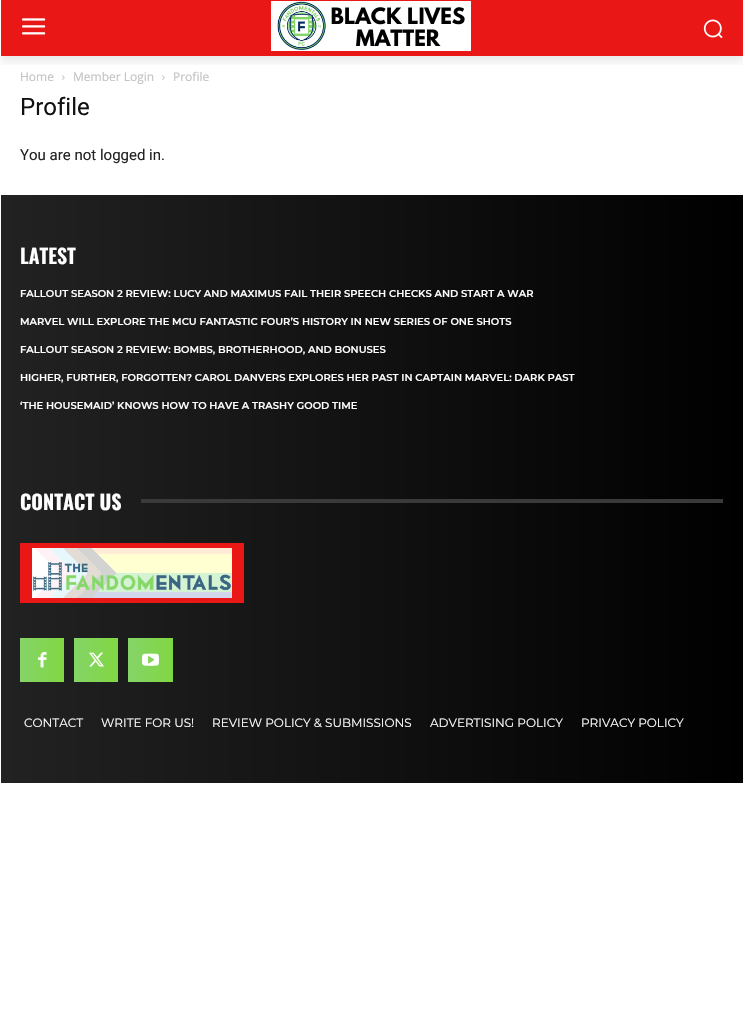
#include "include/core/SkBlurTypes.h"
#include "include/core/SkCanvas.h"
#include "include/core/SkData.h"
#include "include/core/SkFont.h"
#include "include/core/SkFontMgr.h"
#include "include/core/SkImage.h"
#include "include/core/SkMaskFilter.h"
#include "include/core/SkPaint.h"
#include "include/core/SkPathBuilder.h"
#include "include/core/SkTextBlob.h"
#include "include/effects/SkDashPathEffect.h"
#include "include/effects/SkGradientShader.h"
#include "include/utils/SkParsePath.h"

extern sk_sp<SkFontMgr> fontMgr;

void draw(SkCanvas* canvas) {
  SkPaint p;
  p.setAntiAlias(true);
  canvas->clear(SK_ColorWHITE);
  p.setColor(SkColorSetRGB(234, 23, 23));
  canvas->drawRect(SkRect::MakeLTRB(1, 0, 743, 56), p);
  canvas->drawImageRect(SkImages::DeferredFromEncodedData(SkData::MakeFromFileName("images/1.png")), SkRect::MakeLTRB(22, 18, 46, 35), SkSamplingOptions());
  canvas->drawImageRect(SkImages::DeferredFromEncodedData(SkData::MakeFromFileName("images/2.png")), SkRect::MakeLTRB(271, 1, 471, 51), SkSamplingOptions());
  canvas->drawImageRect(SkImages::DeferredFromEncodedData(SkData::MakeFromFileName("images/3.png")), SkRect::MakeLTRB(703, 19, 723, 39), SkSamplingOptions());
  canvas->save();
  canvas->clipRect(SkRect::MakeLTRB(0, 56, 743, 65));
  p.setColor(SkColorSetARGB(20, 0, 0, 0));
  p.setMaskFilter(SkMaskFilter::MakeBlur(kNormal_SkBlurStyle, 4));
  canvas->drawRect(SkRect::MakeLTRB(1, 6, 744, 62), p);
  p.setMaskFilter(nullptr);
  canvas->restore();
  canvas->drawImageRect(SkImages::DeferredFromEncodedData(SkData::MakeFromFileName("images/4.png")), SkRect::MakeLTRB(62, 75, 65, 80), SkSamplingOptions());
  canvas->drawImageRect(SkImages::DeferredFromEncodedData(SkData::MakeFromFileName("images/4.png")), SkRect::MakeLTRB(162, 75, 165, 80), SkSamplingOptions());
  {
    const SkColor colors[] = {SK_ColorBLACK, SkColorSetRGB(34, 34, 34)};
    const float stops[] = {0, 1};
    const SkPoint ends[] = {{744, 489}, {0.5f, 489}};
    p.setShader(SkGradientShader::MakeLinear(ends, colors, stops, 2, SkTileMode::kClamp));
    p.setAlpha(255);
  }
  canvas->drawRect(SkRect::MakeLTRB(1, 195, 743, 783), p);
  p.setShader(nullptr);
  p.setColor(SkColorSetRGB(58, 58, 58));
  canvas->drawRect(SkRect::MakeLTRB(141, 499, 723, 503), p);
  p.setColor(SkColorSetRGB(234, 23, 23));
  canvas->drawRect(SkRect::MakeLTRB(20, 543, 244, 603), p);
  canvas->drawImageRect(SkImages::DeferredFromEncodedData(SkData::MakeFromFileName("images/5.png")), SkRect::MakeLTRB(32, 548, 232, 598), SkSamplingOptions());
  {
    const SkColor colors[] = {SkColorSetRGB(129, 215, 66), SkColorSetRGB(133, 212, 104)};
    const float stops[] = {0, 1};
    const SkPoint ends[] = {{64, 660}, {20, 660}};
    p.setShader(SkGradientShader::MakeLinear(ends, colors, stops, 2, SkTileMode::kClamp));
    p.setAlpha(255);
  }
  canvas->drawRect(SkRect::MakeLTRB(20, 638, 64, 682), p);
  canvas->drawImageRect(SkImages::DeferredFromEncodedData(SkData::MakeFromFileName("images/6.png")), SkRect::MakeLTRB(38, 652, 47, 668), SkSamplingOptions());
  {
    const SkColor colors[] = {SkColorSetRGB(129, 215, 66), SkColorSetRGB(133, 212, 104)};
    const float stops[] = {0, 1};
    const SkPoint ends[] = {{118, 660}, {74, 660}};
    p.setShader(SkGradientShader::MakeLinear(ends, colors, stops, 2, SkTileMode::kClamp));
    p.setAlpha(255);
  }
  canvas->drawRect(SkRect::MakeLTRB(74, 638, 118, 682), p);
  canvas->drawImageRect(SkImages::DeferredFromEncodedData(SkData::MakeFromFileName("images/7.png")), SkRect::MakeLTRB(89, 652, 104, 667), SkSamplingOptions());
  {
    const SkColor colors[] = {SkColorSetRGB(129, 215, 66), SkColorSetRGB(133, 212, 104)};
    const float stops[] = {0, 1};
    const SkPoint ends[] = {{173, 660}, {128, 660}};
    p.setShader(SkGradientShader::MakeLinear(ends, colors, stops, 2, SkTileMode::kClamp));
    p.setAlpha(255);
  }
  canvas->drawRect(SkRect::MakeLTRB(128, 638, 173, 682), p);
  canvas->drawImageRect(SkImages::DeferredFromEncodedData(SkData::MakeFromFileName("images/8.png")), SkRect::MakeLTRB(142, 653, 159, 666), SkSamplingOptions());
  SkFont font1(fontMgr->matchFamilyStyle("Open Sans", SkFontStyle::Normal()), 12);
  font1.setSubpixel(true);
  p.setShader(nullptr);
  p.setColor(SkColorSetRGB(195, 195, 195));
  canvas->drawString("Home", 20, 81, font1, p);
  canvas->drawString("Member Login", 73, 81, font1, p);
  canvas->drawString("Profile", 173, 81, font1, p);
  SkFont font2(fontMgr->matchFamilyStyle("Roboto", SkFontStyle::Normal()), 24);
  font2.setSubpixel(true);
  p.setColor(SkColorSetRGB(17, 17, 17));
  canvas->drawString("Profile", 20, 115, font2, p);
  SkFont font3(fontMgr->matchFamilyStyle("Roboto", SkFontStyle::Normal()), 15);
  font3.setSubpixel(true);
  p.setColor(SkColorSetRGB(34, 34, 34));
  canvas->drawString("You are not logged in.", 20, 160, font3, p);
  SkFont font4(fontMgr->matchFamilyStyle("Oswald", SkFontStyle(600, SkFontStyle::kNormal_Width, SkFontStyle::kUpright_Slant)), 20);
  font4.setSubpixel(true);
  p.setColor(SK_ColorWHITE);
  canvas->drawString("LATEST", 20, 264, font4, p);
  SkFont font5(fontMgr->matchFamilyStyle("Montserrat", SkFontStyle(600, SkFontStyle::kNormal_Width, SkFontStyle::kUpright_Slant)), 10);
  font5.setSubpixel(true);
  canvas->drawString("FALLOUT SEASON 2 REVIEW: LUCY AND MAXIMUS FAIL THEIR SPEECH CHECKS AND START A WAR", 20, 297, font5, p);
  canvas->drawString("MARVEL WILL EXPLORE THE MCU FANTASTIC FOUR’S HISTORY IN NEW SERIES OF ONE SHOTS", 20, 325, font5, p);
  canvas->drawString("FALLOUT SEASON 2 REVIEW: BOMBS, BROTHERHOOD, AND BONUSES", 20, 353, font5, p);
  canvas->drawString("HIGHER, FURTHER, FORGOTTEN? CAROL DANVERS EXPLORES HER PAST IN CAPTAIN MARVEL: DARK PAST", 20, 381, font5, p);
  canvas->drawString("‘THE HOUSEMAID’ KNOWS HOW TO HAVE A TRASHY GOOD TIME", 20, 409, font5, p);
  SkFont font6(fontMgr->matchFamilyStyle("Oswald", SkFontStyle::Bold()), 20);
  font6.setSubpixel(true);
  canvas->drawString("CONTACT US", 20, 510, font6, p);
  SkFont font7(fontMgr->matchFamilyStyle("Montserrat", SkFontStyle::Normal()), 12);
  font7.setSubpixel(true);
  canvas->drawString("CONTACT", 24, 727, font7, p);
  canvas->drawString("WRITE FOR US!", 101, 727, font7, p);
  canvas->drawString("REVIEW POLICY & SUBMISSIONS", 212, 727, font7, p);
  canvas->drawString("ADVERTISING POLICY", 430, 727, font7, p);
  canvas->drawString("PRIVACY POLICY", 581, 727, font7, p);
}
